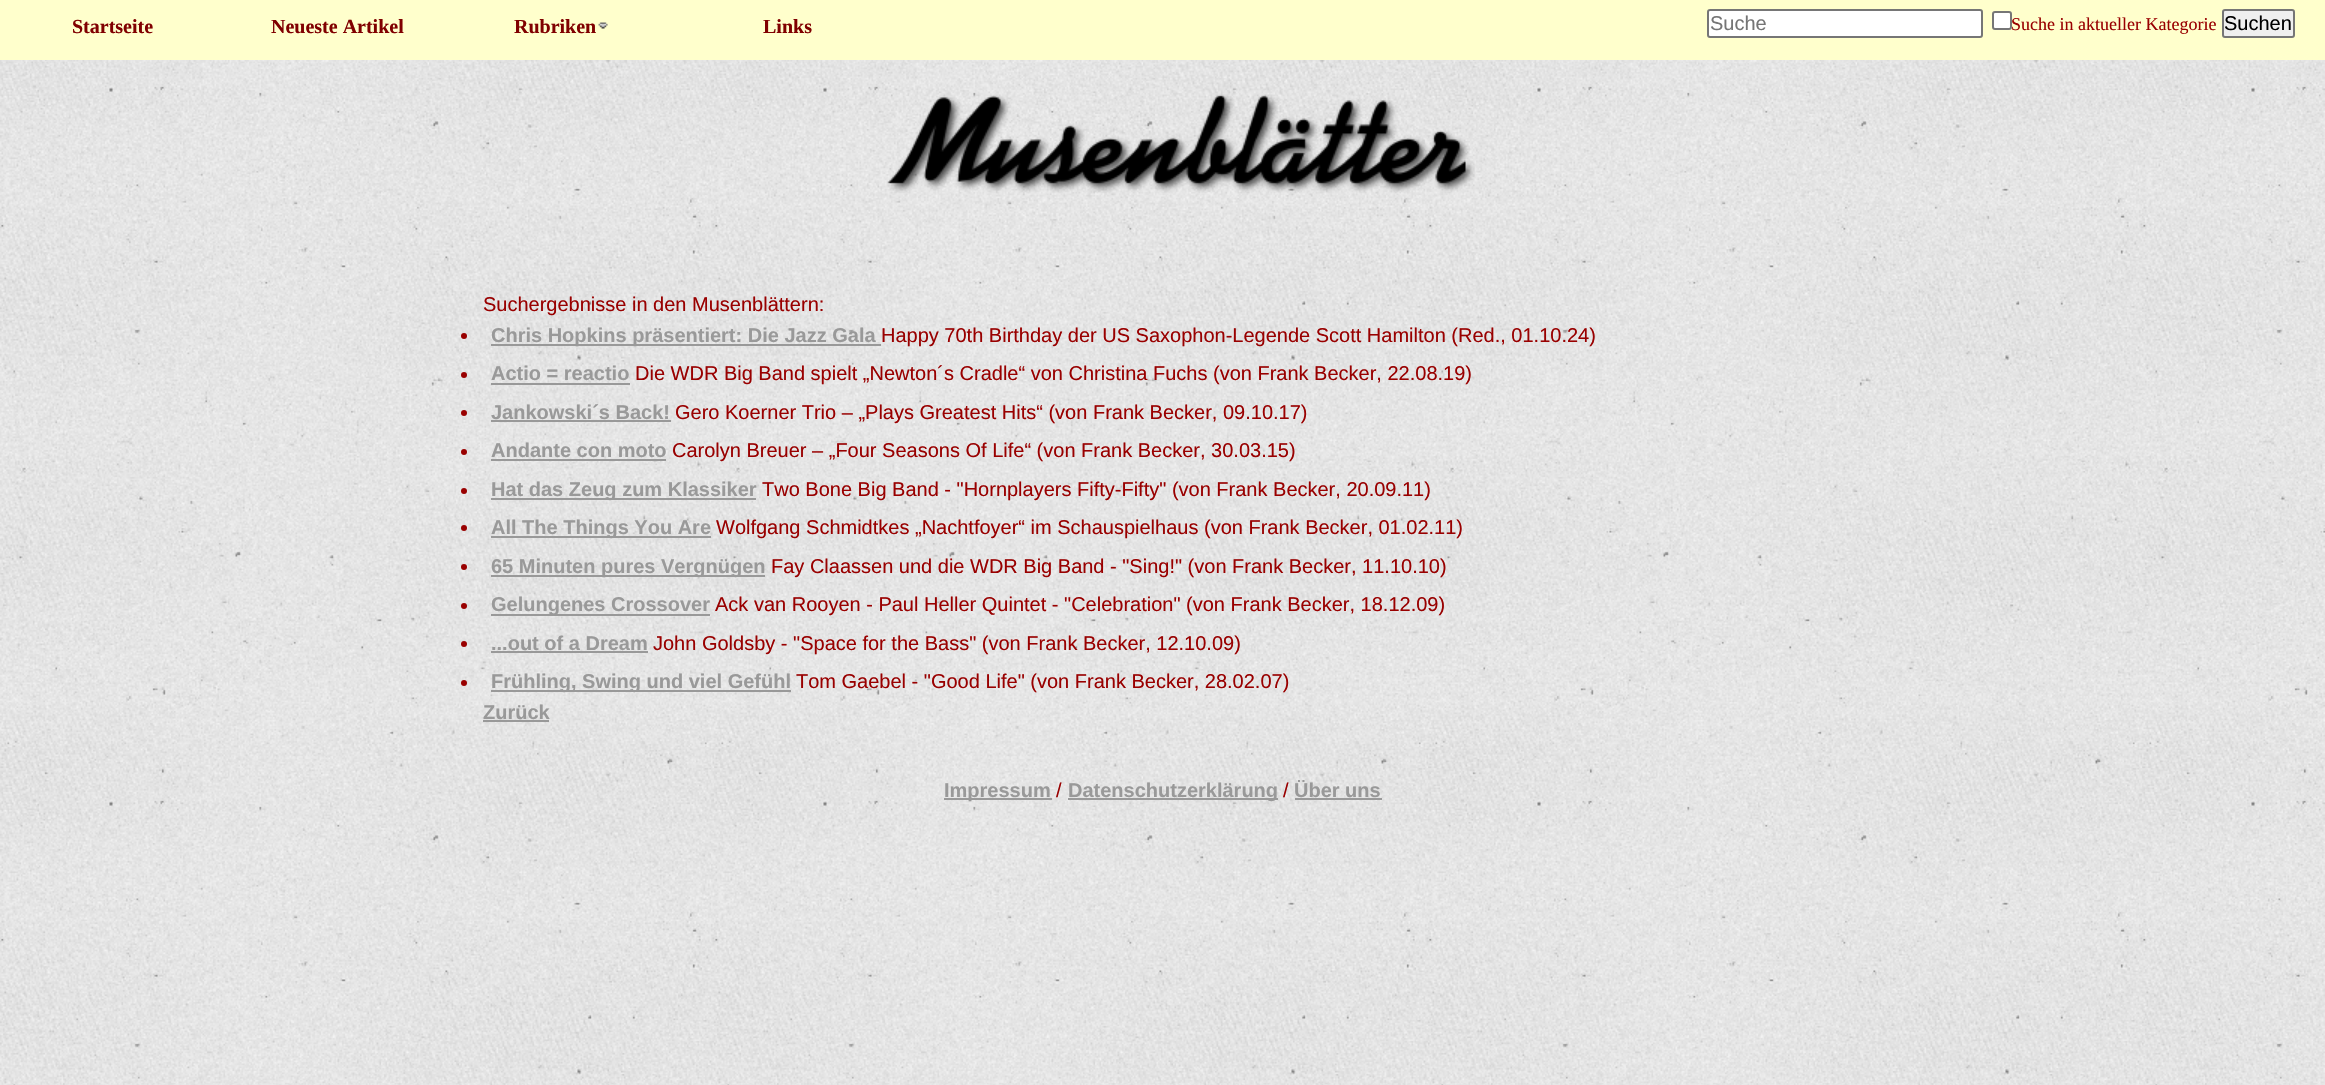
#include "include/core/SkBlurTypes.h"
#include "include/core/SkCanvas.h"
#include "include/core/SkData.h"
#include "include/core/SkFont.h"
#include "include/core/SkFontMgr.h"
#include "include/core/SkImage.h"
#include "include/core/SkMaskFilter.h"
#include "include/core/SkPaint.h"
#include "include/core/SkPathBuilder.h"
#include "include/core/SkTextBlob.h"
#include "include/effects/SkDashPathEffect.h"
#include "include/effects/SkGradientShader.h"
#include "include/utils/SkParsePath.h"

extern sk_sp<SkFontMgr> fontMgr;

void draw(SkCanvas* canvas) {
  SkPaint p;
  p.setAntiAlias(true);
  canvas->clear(SK_ColorWHITE);
  canvas->drawImageRect(SkImages::DeferredFromEncodedData(SkData::MakeFromFileName("images/1.png")), SkRect::MakeLTRB(0, 60, 2325, 1085), SkSamplingOptions());
  p.setColor(SkColorSetRGB(255, 255, 204));
  canvas->drawRect(SkRect::MakeLTRB(0, 0, 2325, 60), p);
  canvas->drawImageRect(SkImages::DeferredFromEncodedData(SkData::MakeFromFileName("images/2.png")), SkRect::MakeLTRB(598, 22, 608, 29), SkSamplingOptions());
  p.setColor(SK_ColorWHITE);
  canvas->drawRoundRect(SkRect::MakeLTRB(1708, 10, 1982, 37), 2, 2, p);
  p.setStyle(SkPaint::kStroke_Style);
  p.setStrokeWidth(2);
  p.setColor(SkColorSetRGB(118, 118, 118));
  canvas->drawRoundRect(SkRect::MakeLTRB(1708, 10, 1982, 37), 2, 2, p);
  p.setStyle(SkPaint::kFill_Style);
  p.setColor(SK_ColorWHITE);
  canvas->drawRoundRect(SkRect::MakeLTRB(1993, 12, 2011, 29), 2, 2, p);
  p.setStyle(SkPaint::kStroke_Style);
  p.setColor(SkColorSetRGB(118, 118, 118));
  canvas->drawRoundRect(SkRect::MakeLTRB(1993, 12, 2011, 29), 2, 2, p);
  p.setStyle(SkPaint::kFill_Style);
  p.setColor(SkColorSetRGB(239, 239, 239));
  canvas->drawRoundRect(SkRect::MakeLTRB(2223, 10, 2294, 37), 2, 2, p);
  p.setStyle(SkPaint::kStroke_Style);
  p.setColor(SkColorSetRGB(118, 118, 118));
  canvas->drawRoundRect(SkRect::MakeLTRB(2223, 10, 2294, 37), 2, 2, p);
  canvas->drawImageRect(SkImages::DeferredFromEncodedData(SkData::MakeFromFileName("images/3.png")), SkRect::MakeLTRB(887, 94, 1475, 193), SkSamplingOptions());
  p.setStyle(SkPaint::kFill_Style);
  p.setColor(SkColorSetRGB(153, 0, 0));
  canvas->drawCircle(464, 336, 3, p);
  p.setColor(SkColorSetRGB(153, 153, 153));
  canvas->drawRect(SkRect::MakeLTRB(491, 344, 881, 346), p);
  p.setColor(SkColorSetRGB(153, 0, 0));
  canvas->drawCircle(464, 375, 3, p);
  p.setColor(SkColorSetRGB(153, 153, 153));
  canvas->drawRect(SkRect::MakeLTRB(491, 383, 630, 385), p);
  p.setColor(SkColorSetRGB(153, 0, 0));
  canvas->drawCircle(464, 413, 3, p);
  p.setColor(SkColorSetRGB(153, 153, 153));
  canvas->drawRect(SkRect::MakeLTRB(491, 420, 671, 422), p);
  p.setColor(SkColorSetRGB(153, 0, 0));
  canvas->drawCircle(464, 452, 3, p);
  p.setColor(SkColorSetRGB(153, 153, 153));
  canvas->drawRect(SkRect::MakeLTRB(491, 459, 666, 461), p);
  p.setColor(SkColorSetRGB(153, 0, 0));
  canvas->drawCircle(464, 491, 3, p);
  p.setColor(SkColorSetRGB(153, 153, 153));
  canvas->drawRect(SkRect::MakeLTRB(491, 498, 756, 500), p);
  p.setColor(SkColorSetRGB(153, 0, 0));
  canvas->drawCircle(464, 528, 3, p);
  p.setColor(SkColorSetRGB(153, 153, 153));
  canvas->drawRect(SkRect::MakeLTRB(491, 536, 711, 538), p);
  p.setColor(SkColorSetRGB(153, 0, 0));
  canvas->drawCircle(464, 567, 3, p);
  p.setColor(SkColorSetRGB(153, 153, 153));
  canvas->drawRect(SkRect::MakeLTRB(491, 575, 765, 577), p);
  p.setColor(SkColorSetRGB(153, 0, 0));
  canvas->drawCircle(464, 606, 3, p);
  p.setColor(SkColorSetRGB(153, 153, 153));
  canvas->drawRect(SkRect::MakeLTRB(491, 614, 710, 616), p);
  p.setColor(SkColorSetRGB(153, 0, 0));
  canvas->drawCircle(464, 644, 3, p);
  p.setColor(SkColorSetRGB(153, 153, 153));
  canvas->drawRect(SkRect::MakeLTRB(491, 651, 648, 653), p);
  p.setColor(SkColorSetRGB(153, 0, 0));
  canvas->drawCircle(464, 683, 3, p);
  p.setColor(SkColorSetRGB(153, 153, 153));
  canvas->drawRect(SkRect::MakeLTRB(491, 690, 791, 692), p);
  canvas->drawRect(SkRect::MakeLTRB(483, 720, 549, 722), p);
  canvas->drawRect(SkRect::MakeLTRB(944, 798, 1052, 800), p);
  canvas->drawRect(SkRect::MakeLTRB(1068, 798, 1278, 800), p);
  canvas->drawRect(SkRect::MakeLTRB(1295, 798, 1382, 800), p);
  SkFont font1(fontMgr->matchFamilyStyle("Liberation Serif", SkFontStyle::Bold()), 20);
  font1.setSubpixel(true);
  p.setColor(SkColorSetRGB(128, 0, 0));
  canvas->drawString("Startseite", 72, 33, font1, p);
  canvas->drawString("Neueste Artikel", 271, 33, font1, p);
  canvas->drawString("Rubriken", 514, 33, font1, p);
  canvas->drawString("Links", 763, 33, font1, p);
  SkFont font2(fontMgr->matchFamilyStyle("Liberation Sans", SkFontStyle::Normal()), 20);
  font2.setSubpixel(true);
  p.setColor(SkColorSetRGB(117, 117, 117));
  canvas->drawString("Suche", 1710, 30, font2, p);
  SkFont font3(fontMgr->matchFamilyStyle("Liberation Serif", SkFontStyle::Normal()), 18);
  font3.setSubpixel(true);
  p.setColor(SkColorSetRGB(153, 0, 0));
  canvas->drawString("Suche in aktueller Kategorie", 2011, 30, font3, p);
  p.setColor(SK_ColorBLACK);
  canvas->drawString("Suchen", 2224, 30, font2, p);
  p.setColor(SkColorSetRGB(153, 0, 0));
  canvas->drawString("Suchergebnisse in den Musenblättern:", 483, 311, font2, p);
  SkFont font4(fontMgr->matchFamilyStyle("Liberation Sans", SkFontStyle::Bold()), 20);
  font4.setSubpixel(true);
  p.setColor(SkColorSetRGB(153, 153, 153));
  canvas->drawString("Chris Hopkins präsentiert: Die Jazz Gala", 491, 342, font4, p);
  p.setColor(SkColorSetRGB(153, 0, 0));
  canvas->drawString("Happy 70th Birthday der US Saxophon-Legende Scott Hamilton (Red., 01.10.24)", 881, 342, font2, p);
  p.setColor(SkColorSetRGB(153, 153, 153));
  canvas->drawString("Actio = reactio", 491, 380, font4, p);
  p.setColor(SkColorSetRGB(153, 0, 0));
  canvas->drawString("Die WDR Big Band spielt „Newton´s Cradle“ von Christina Fuchs (von Frank Becker, 22.08.19)", 635, 380, font2, p);
  p.setColor(SkColorSetRGB(153, 153, 153));
  canvas->drawString("Jankowski´s Back!", 491, 419, font4, p);
  p.setColor(SkColorSetRGB(153, 0, 0));
  canvas->drawString("Gero Koerner Trio – „Plays Greatest Hits“ (von Frank Becker, 09.10.17)", 675, 419, font2, p);
  p.setColor(SkColorSetRGB(153, 153, 153));
  canvas->drawString("Andante con moto", 491, 457, font4, p);
  p.setColor(SkColorSetRGB(153, 0, 0));
  canvas->drawString("Carolyn Breuer – „Four Seasons Of Life“ (von Frank Becker, 30.03.15)", 672, 457, font2, p);
  p.setColor(SkColorSetRGB(153, 153, 153));
  canvas->drawString("Hat das Zeug zum Klassiker", 491, 496, font4, p);
  p.setColor(SkColorSetRGB(153, 0, 0));
  canvas->drawString("Two Bone Big Band - \"Hornplayers Fifty-Fifty\" (von Frank Becker, 20.09.11)", 762, 496, font2, p);
  p.setColor(SkColorSetRGB(153, 153, 153));
  canvas->drawString("All The Things You Are", 491, 534, font4, p);
  p.setColor(SkColorSetRGB(153, 0, 0));
  canvas->drawString("Wolfgang Schmidtkes „Nachtfoyer“ im Schauspielhaus (von Frank Becker, 01.02.11)", 716, 534, font2, p);
  p.setColor(SkColorSetRGB(153, 153, 153));
  canvas->drawString("65 Minuten pures Vergnügen", 491, 573, font4, p);
  p.setColor(SkColorSetRGB(153, 0, 0));
  canvas->drawString("Fay Claassen und die WDR Big Band - \"Sing!\" (von Frank Becker, 11.10.10)", 771, 573, font2, p);
  p.setColor(SkColorSetRGB(153, 153, 153));
  canvas->drawString("Gelungenes Crossover", 491, 611, font4, p);
  p.setColor(SkColorSetRGB(153, 0, 0));
  canvas->drawString("Ack van Rooyen - Paul Heller Quintet - \"Celebration\" (von Frank Becker, 18.12.09)", 715, 611, font2, p);
  p.setColor(SkColorSetRGB(153, 153, 153));
  canvas->drawString("...out of a Dream", 491, 650, font4, p);
  p.setColor(SkColorSetRGB(153, 0, 0));
  canvas->drawString("John Goldsby - \"Space for the Bass\" (von Frank Becker, 12.10.09)", 653, 650, font2, p);
  p.setColor(SkColorSetRGB(153, 153, 153));
  canvas->drawString("Frühling, Swing und viel Gefühl", 491, 688, font4, p);
  p.setColor(SkColorSetRGB(153, 0, 0));
  canvas->drawString("Tom Gaebel - \"Good Life\" (von Frank Becker, 28.02.07)", 796, 688, font2, p);
  p.setColor(SkColorSetRGB(153, 153, 153));
  canvas->drawString("Zurück", 483, 719, font4, p);
  canvas->drawString("Impressum", 944, 797, font4, p);
  p.setColor(SkColorSetRGB(153, 0, 0));
  canvas->drawString("/", 1056, 797, font2, p);
  p.setColor(SkColorSetRGB(153, 153, 153));
  canvas->drawString("Datenschutzerklärung", 1068, 797, font4, p);
  p.setColor(SkColorSetRGB(153, 0, 0));
  canvas->drawString("/", 1283, 797, font2, p);
  p.setColor(SkColorSetRGB(153, 153, 153));
  canvas->drawString("Über uns", 1294, 797, font4, p);
}
